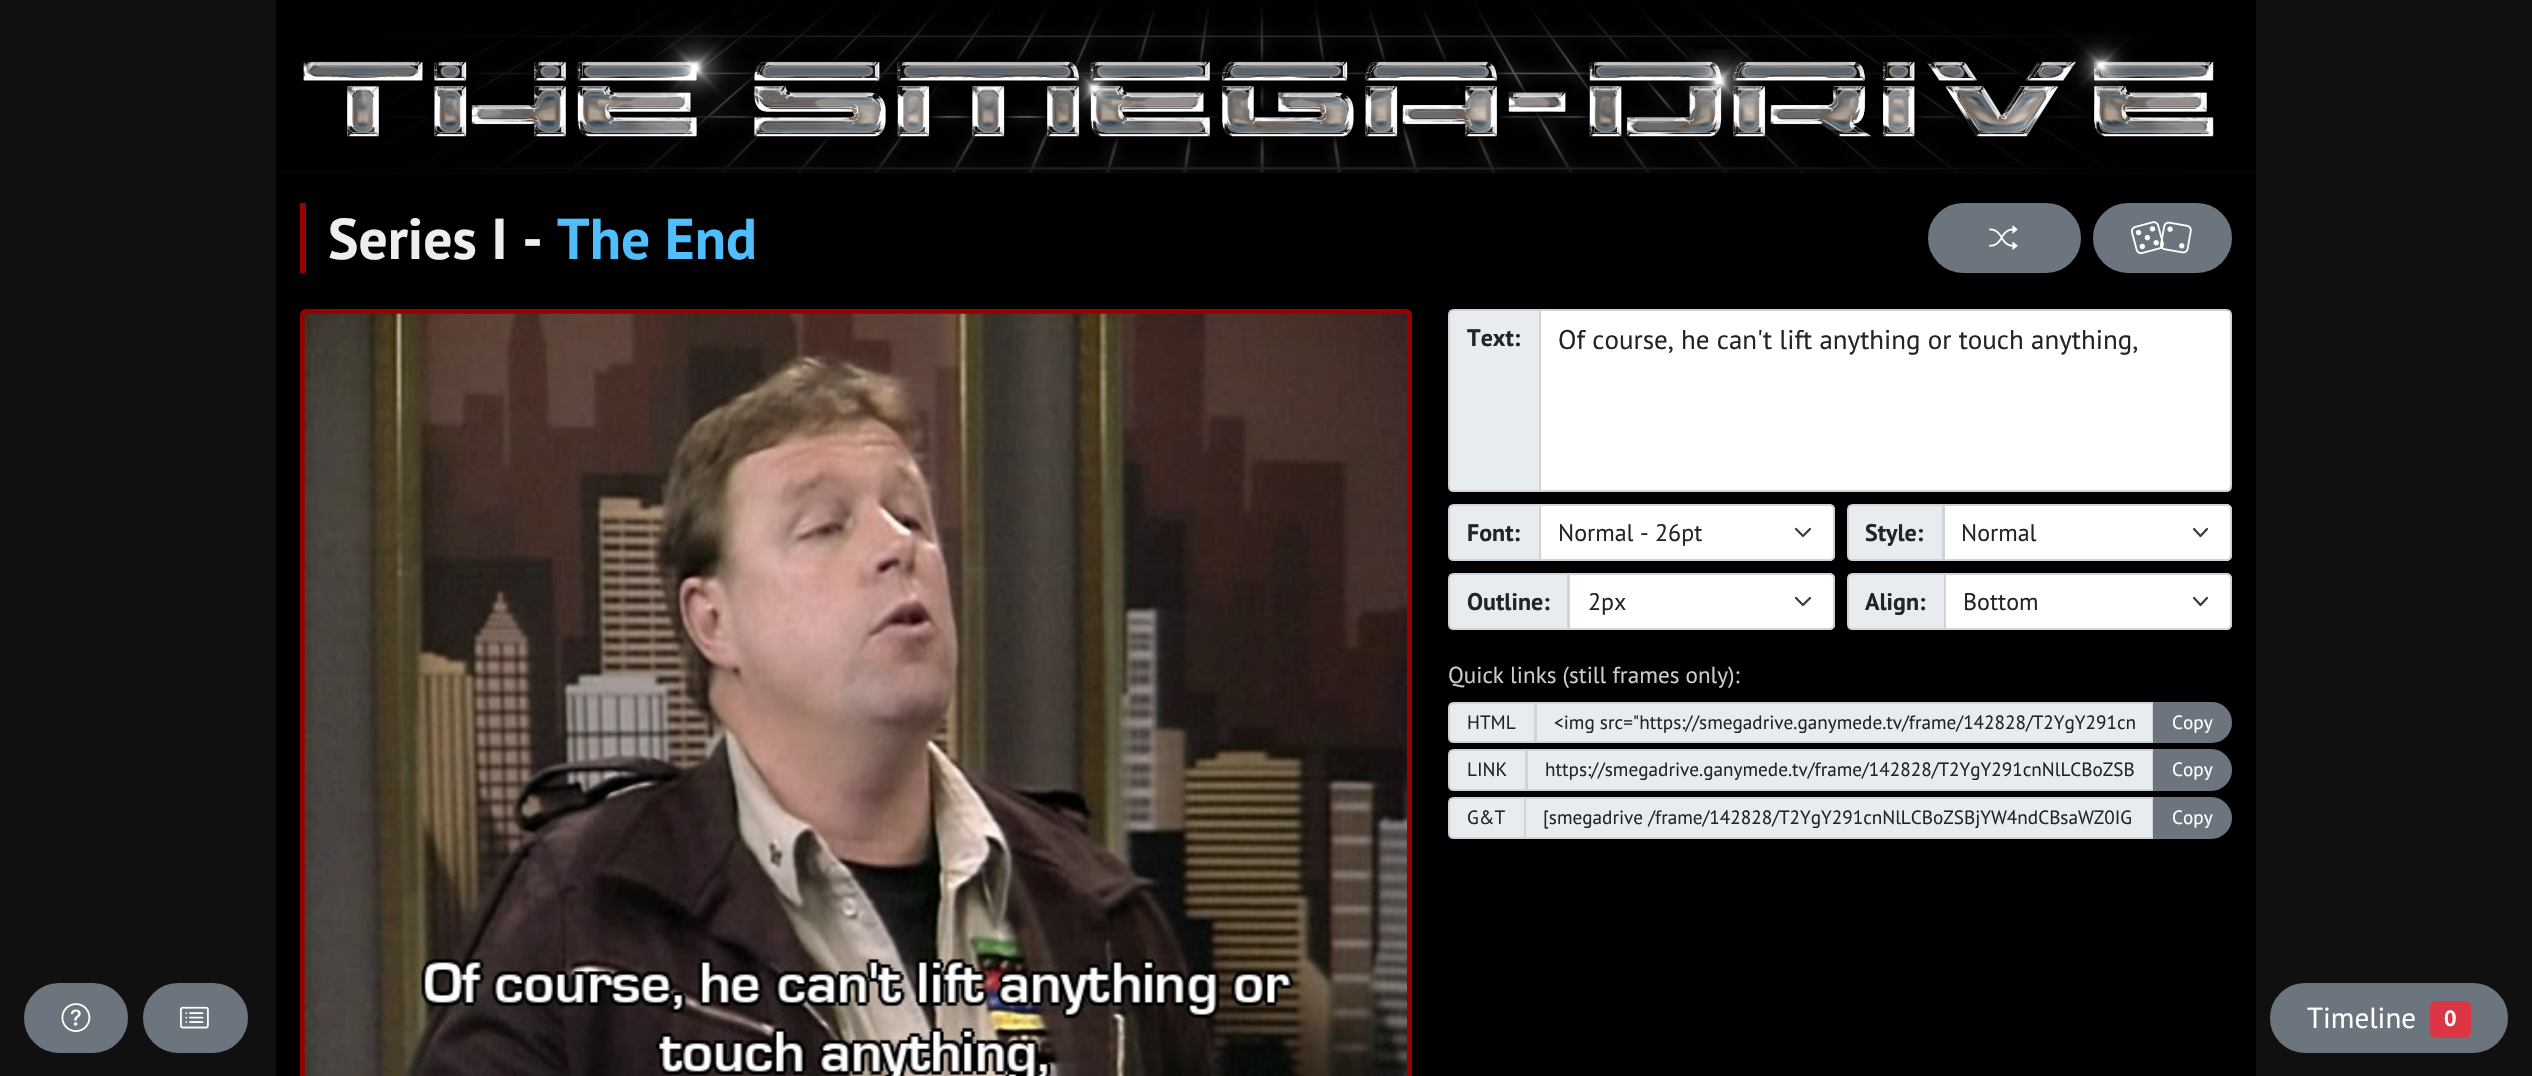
#include "include/core/SkBlurTypes.h"
#include "include/core/SkCanvas.h"
#include "include/core/SkData.h"
#include "include/core/SkFont.h"
#include "include/core/SkFontMgr.h"
#include "include/core/SkImage.h"
#include "include/core/SkMaskFilter.h"
#include "include/core/SkPaint.h"
#include "include/core/SkPathBuilder.h"
#include "include/core/SkTextBlob.h"
#include "include/effects/SkDashPathEffect.h"
#include "include/effects/SkGradientShader.h"
#include "include/utils/SkParsePath.h"

extern sk_sp<SkFontMgr> fontMgr;

void draw(SkCanvas* canvas) {
  SkPaint p;
  p.setAntiAlias(true);
  canvas->clear(SkColorSetRGB(16, 16, 16));
  canvas->drawImageRect(SkImages::DeferredFromEncodedData(SkData::MakeFromFileName("images/1.png")), SkRect::MakeLTRB(276, 0, 2256, 173), SkSamplingOptions());
  p.setColor(SK_ColorBLACK);
  canvas->drawRect(SkRect::MakeLTRB(276, 173, 2256, 1076), p);
  p.setColor(SkColorSetRGB(153, 0, 0));
  canvas->drawRect(SkRect::MakeLTRB(300, 203, 306, 273), p);
  p.setColor(SkColorSetRGB(108, 117, 125));
  canvas->drawRoundRect(SkRect::MakeLTRB(1929, 204, 2080, 272), 34, 34, p);
  p.setStyle(SkPaint::kStroke_Style);
  p.setStrokeWidth(2);
  canvas->drawRoundRect(SkRect::MakeLTRB(1929, 204, 2080, 272), 34, 34, p);
  canvas->drawImageRect(SkImages::DeferredFromEncodedData(SkData::MakeFromFileName("images/2.png")), SkRect::MakeLTRB(1989, 225, 2018, 250), SkSamplingOptions());
  p.setStyle(SkPaint::kFill_Style);
  canvas->drawRoundRect(SkRect::MakeLTRB(2094, 204, 2231, 272), 34, 34, p);
  p.setStyle(SkPaint::kStroke_Style);
  canvas->drawRoundRect(SkRect::MakeLTRB(2094, 204, 2231, 272), 34, 34, p);
  canvas->drawImageRect(SkImages::DeferredFromEncodedData(SkData::MakeFromFileName("images/3.png")), SkRect::MakeLTRB(2131, 221, 2164, 255), SkSamplingOptions());
  canvas->drawImageRect(SkImages::DeferredFromEncodedData(SkData::MakeFromFileName("images/4.png")), SkRect::MakeLTRB(2160, 221, 2192, 254), SkSamplingOptions());
  p.setStrokeWidth(5);
  p.setColor(SkColorSetRGB(153, 0, 0));
  canvas->drawRoundRect(SkRect::MakeLTRB(302.5f, 311.5f, 1409.5f, 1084.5f), 3.5f, 3.5f, p);
  canvas->drawImageRect(SkImages::DeferredFromEncodedData(SkData::MakeFromFileName("images/5.png")), SkRect::MakeLTRB(304, 313, 1407, 1076), SkSamplingOptions());
  p.setStyle(SkPaint::kFill_Style);
  p.setColor(SkColorSetRGB(233, 236, 239));
  canvas->drawPath(SkPathBuilder().moveTo(1454, 310).lineTo(1540, 310).lineTo(1540, 491).lineTo(1454, 491).cubicTo(1451, 491, 1449, 489, 1449, 486).lineTo(1449, 315).cubicTo(1449, 312, 1451, 310, 1454, 310).close().detach(), p);
  p.setStyle(SkPaint::kStroke_Style);
  p.setStrokeWidth(2);
  p.setColor(SkColorSetRGB(206, 212, 218));
  canvas->drawPath(SkPathBuilder().moveTo(1454, 310).lineTo(1540, 310).lineTo(1540, 491).lineTo(1454, 491).cubicTo(1451, 491, 1449, 489, 1449, 486).lineTo(1449, 315).cubicTo(1449, 312, 1451, 310, 1454, 310).close().detach(), p);
  p.setStyle(SkPaint::kFill_Style);
  p.setColor(SK_ColorWHITE);
  canvas->drawPath(SkPathBuilder().moveTo(1540, 310).lineTo(2226, 310).cubicTo(2229, 310, 2231, 312, 2231, 315).lineTo(2231, 486).cubicTo(2231, 489, 2229, 491, 2226, 491).lineTo(1540, 491).close().detach(), p);
  p.setStyle(SkPaint::kStroke_Style);
  p.setColor(SkColorSetRGB(206, 212, 218));
  canvas->drawPath(SkPathBuilder().moveTo(1540, 310).lineTo(2226, 310).cubicTo(2229, 310, 2231, 312, 2231, 315).lineTo(2231, 486).cubicTo(2231, 489, 2229, 491, 2226, 491).lineTo(1540, 491).close().detach(), p);
  p.setStyle(SkPaint::kFill_Style);
  p.setColor(SkColorSetRGB(233, 236, 239));
  canvas->drawPath(SkPathBuilder().moveTo(1454, 505).lineTo(1540, 505).lineTo(1540, 560).lineTo(1454, 560).cubicTo(1451, 560, 1449, 558, 1449, 555).lineTo(1449, 510).cubicTo(1449, 507, 1451, 505, 1454, 505).close().detach(), p);
  p.setStyle(SkPaint::kStroke_Style);
  p.setColor(SkColorSetRGB(206, 212, 218));
  canvas->drawPath(SkPathBuilder().moveTo(1454, 505).lineTo(1540, 505).lineTo(1540, 560).lineTo(1454, 560).cubicTo(1451, 560, 1449, 558, 1449, 555).lineTo(1449, 510).cubicTo(1449, 507, 1451, 505, 1454, 505).close().detach(), p);
  p.setStyle(SkPaint::kFill_Style);
  p.setColor(SK_ColorWHITE);
  canvas->drawPath(SkPathBuilder().moveTo(1539, 504).lineTo(1829, 504).cubicTo(1832.5f, 504, 1835, 506.5f, 1835, 510).lineTo(1835, 555).cubicTo(1835, 558.5f, 1832.5f, 561, 1829, 561).lineTo(1539, 561).close().detach(), p);
  p.setStyle(SkPaint::kStroke_Style);
  p.setStrokeWidth(2.2f);
  p.setStrokeCap(SkPaint::kRound_Cap);
  p.setStrokeJoin(SkPaint::kRound_Join);
  p.setColor(SkColorSetRGB(52, 58, 64));
  canvas->drawPath(SkPathBuilder().moveTo(1796, 529).lineTo(1803, 536).lineTo(1810, 529).detach(), p);
  p.setStrokeWidth(2);
  p.setStrokeCap(SkPaint::kButt_Cap);
  p.setStrokeJoin(SkPaint::kMiter_Join);
  p.setColor(SkColorSetRGB(206, 212, 218));
  canvas->drawPath(SkPathBuilder().moveTo(1540, 505).lineTo(1829, 505).cubicTo(1832, 505, 1834, 507, 1834, 510).lineTo(1834, 555).cubicTo(1834, 558, 1832, 560, 1829, 560).lineTo(1540, 560).close().detach(), p);
  p.setStyle(SkPaint::kFill_Style);
  p.setColor(SkColorSetRGB(233, 236, 239));
  canvas->drawPath(SkPathBuilder().moveTo(1853, 505).lineTo(1943, 505).lineTo(1943, 560).lineTo(1853, 560).cubicTo(1850, 560, 1848, 558, 1848, 555).lineTo(1848, 510).cubicTo(1848, 507, 1850, 505, 1853, 505).close().detach(), p);
  p.setStyle(SkPaint::kStroke_Style);
  p.setColor(SkColorSetRGB(206, 212, 218));
  canvas->drawPath(SkPathBuilder().moveTo(1853, 505).lineTo(1943, 505).lineTo(1943, 560).lineTo(1853, 560).cubicTo(1850, 560, 1848, 558, 1848, 555).lineTo(1848, 510).cubicTo(1848, 507, 1850, 505, 1853, 505).close().detach(), p);
  p.setStyle(SkPaint::kFill_Style);
  p.setColor(SK_ColorWHITE);
  canvas->drawPath(SkPathBuilder().moveTo(1943, 504).lineTo(2226, 504).cubicTo(2229.5f, 504, 2232, 506.5f, 2232, 510).lineTo(2232, 555).cubicTo(2232, 558.5f, 2229.5f, 561, 2226, 561).lineTo(1943, 561).close().detach(), p);
  p.setStyle(SkPaint::kStroke_Style);
  p.setStrokeWidth(2.2f);
  p.setStrokeCap(SkPaint::kRound_Cap);
  p.setStrokeJoin(SkPaint::kRound_Join);
  p.setColor(SkColorSetRGB(52, 58, 64));
  canvas->drawPath(SkPathBuilder().moveTo(2194, 529).lineTo(2200.5f, 536).lineTo(2207, 529).detach(), p);
  p.setStrokeWidth(2);
  p.setStrokeCap(SkPaint::kButt_Cap);
  p.setStrokeJoin(SkPaint::kMiter_Join);
  p.setColor(SkColorSetRGB(206, 212, 218));
  canvas->drawPath(SkPathBuilder().moveTo(1944, 505).lineTo(2226, 505).cubicTo(2229, 505, 2231, 507, 2231, 510).lineTo(2231, 555).cubicTo(2231, 558, 2229, 560, 2226, 560).lineTo(1944, 560).close().detach(), p);
  p.setStyle(SkPaint::kFill_Style);
  p.setColor(SkColorSetRGB(233, 236, 239));
  canvas->drawPath(SkPathBuilder().moveTo(1454, 574).lineTo(1568, 574).lineTo(1568, 629).lineTo(1454, 629).cubicTo(1451, 629, 1449, 627, 1449, 624).lineTo(1449, 579).cubicTo(1449, 576, 1451, 574, 1454, 574).close().detach(), p);
  p.setStyle(SkPaint::kStroke_Style);
  p.setColor(SkColorSetRGB(206, 212, 218));
  canvas->drawPath(SkPathBuilder().moveTo(1454, 574).lineTo(1568, 574).lineTo(1568, 629).lineTo(1454, 629).cubicTo(1451, 629, 1449, 627, 1449, 624).lineTo(1449, 579).cubicTo(1449, 576, 1451, 574, 1454, 574).close().detach(), p);
  p.setStyle(SkPaint::kFill_Style);
  p.setColor(SK_ColorWHITE);
  canvas->drawPath(SkPathBuilder().moveTo(1568, 573).lineTo(1829, 573).cubicTo(1832.5f, 573, 1835, 575.5f, 1835, 579).lineTo(1835, 624).cubicTo(1835, 627.5f, 1832.5f, 630, 1829, 630).lineTo(1568, 630).close().detach(), p);
  p.setStyle(SkPaint::kStroke_Style);
  p.setStrokeWidth(2.2f);
  p.setStrokeCap(SkPaint::kRound_Cap);
  p.setStrokeJoin(SkPaint::kRound_Join);
  p.setColor(SkColorSetRGB(52, 58, 64));
  canvas->drawPath(SkPathBuilder().moveTo(1796, 598).lineTo(1803, 605).lineTo(1810, 598).detach(), p);
  p.setStrokeWidth(2);
  p.setStrokeCap(SkPaint::kButt_Cap);
  p.setStrokeJoin(SkPaint::kMiter_Join);
  p.setColor(SkColorSetRGB(206, 212, 218));
  canvas->drawPath(SkPathBuilder().moveTo(1569, 574).lineTo(1829, 574).cubicTo(1832, 574, 1834, 576, 1834, 579).lineTo(1834, 624).cubicTo(1834, 627, 1832, 629, 1829, 629).lineTo(1569, 629).close().detach(), p);
  p.setStyle(SkPaint::kFill_Style);
  p.setColor(SkColorSetRGB(233, 236, 239));
  canvas->drawPath(SkPathBuilder().moveTo(1853, 574).lineTo(1945, 574).lineTo(1945, 629).lineTo(1853, 629).cubicTo(1850, 629, 1848, 627, 1848, 624).lineTo(1848, 579).cubicTo(1848, 576, 1850, 574, 1853, 574).close().detach(), p);
  p.setStyle(SkPaint::kStroke_Style);
  p.setColor(SkColorSetRGB(206, 212, 218));
  canvas->drawPath(SkPathBuilder().moveTo(1853, 574).lineTo(1945, 574).lineTo(1945, 629).lineTo(1853, 629).cubicTo(1850, 629, 1848, 627, 1848, 624).lineTo(1848, 579).cubicTo(1848, 576, 1850, 574, 1853, 574).close().detach(), p);
  p.setStyle(SkPaint::kFill_Style);
  p.setColor(SK_ColorWHITE);
  canvas->drawPath(SkPathBuilder().moveTo(1944, 573).lineTo(2226, 573).cubicTo(2229.5f, 573, 2232, 575.5f, 2232, 579).lineTo(2232, 624).cubicTo(2232, 627.5f, 2229.5f, 630, 2226, 630).lineTo(1944, 630).close().detach(), p);
  p.setStyle(SkPaint::kStroke_Style);
  p.setStrokeWidth(2.2f);
  p.setStrokeCap(SkPaint::kRound_Cap);
  p.setStrokeJoin(SkPaint::kRound_Join);
  p.setColor(SkColorSetRGB(52, 58, 64));
  canvas->drawPath(SkPathBuilder().moveTo(2194, 598).lineTo(2200.5f, 605).lineTo(2207, 598).detach(), p);
  p.setStrokeWidth(2);
  p.setStrokeCap(SkPaint::kButt_Cap);
  p.setStrokeJoin(SkPaint::kMiter_Join);
  p.setColor(SkColorSetRGB(206, 212, 218));
  canvas->drawPath(SkPathBuilder().moveTo(1945, 574).lineTo(2226, 574).cubicTo(2229, 574, 2231, 576, 2231, 579).lineTo(2231, 624).cubicTo(2231, 627, 2229, 629, 2226, 629).lineTo(1945, 629).close().detach(), p);
  p.setStyle(SkPaint::kFill_Style);
  p.setColor(SkColorSetRGB(233, 236, 239));
  canvas->drawPath(SkPathBuilder().moveTo(1454, 703).lineTo(1535, 703).lineTo(1535, 742).lineTo(1454, 742).cubicTo(1451, 742, 1449, 740, 1449, 737).lineTo(1449, 708).cubicTo(1449, 705, 1451, 703, 1454, 703).close().detach(), p);
  p.setStyle(SkPaint::kStroke_Style);
  p.setColor(SkColorSetRGB(206, 212, 218));
  canvas->drawPath(SkPathBuilder().moveTo(1454, 703).lineTo(1535, 703).lineTo(1535, 742).lineTo(1454, 742).cubicTo(1451, 742, 1449, 740, 1449, 737).lineTo(1449, 708).cubicTo(1449, 705, 1451, 703, 1454, 703).close().detach(), p);
  p.setStyle(SkPaint::kFill_Style);
  p.setColor(SkColorSetRGB(233, 236, 239));
  canvas->drawRect(SkRect::MakeLTRB(1536, 703, 2153, 742), p);
  p.setStyle(SkPaint::kStroke_Style);
  p.setColor(SkColorSetRGB(206, 212, 218));
  canvas->drawRect(SkRect::MakeLTRB(1536, 703, 2153, 742), p);
  p.setStyle(SkPaint::kFill_Style);
  p.setColor(SkColorSetRGB(108, 117, 125));
  canvas->drawPath(SkPathBuilder().moveTo(2154, 703).lineTo(2211.5f, 703).cubicTo(2222.5f, 703, 2231, 711.5f, 2231, 722.5f).cubicTo(2231, 733.5f, 2222.5f, 742, 2211.5f, 742).lineTo(2154, 742).close().detach(), p);
  p.setStyle(SkPaint::kStroke_Style);
  canvas->drawPath(SkPathBuilder().moveTo(2154, 703).lineTo(2211.5f, 703).cubicTo(2222.5f, 703, 2231, 711.5f, 2231, 722.5f).cubicTo(2231, 733.5f, 2222.5f, 742, 2211.5f, 742).lineTo(2154, 742).close().detach(), p);
  p.setStyle(SkPaint::kFill_Style);
  p.setColor(SkColorSetRGB(233, 236, 239));
  canvas->drawPath(SkPathBuilder().moveTo(1454, 750).lineTo(1526, 750).lineTo(1526, 790).lineTo(1454, 790).cubicTo(1451, 790, 1449, 788, 1449, 785).lineTo(1449, 755).cubicTo(1449, 752, 1451, 750, 1454, 750).close().detach(), p);
  p.setStyle(SkPaint::kStroke_Style);
  p.setColor(SkColorSetRGB(206, 212, 218));
  canvas->drawPath(SkPathBuilder().moveTo(1454, 750).lineTo(1526, 750).lineTo(1526, 790).lineTo(1454, 790).cubicTo(1451, 790, 1449, 788, 1449, 785).lineTo(1449, 755).cubicTo(1449, 752, 1451, 750, 1454, 750).close().detach(), p);
  p.setStyle(SkPaint::kFill_Style);
  p.setColor(SkColorSetRGB(233, 236, 239));
  canvas->drawRect(SkRect::MakeLTRB(1527, 750, 2153, 790), p);
  p.setStyle(SkPaint::kStroke_Style);
  p.setColor(SkColorSetRGB(206, 212, 218));
  canvas->drawRect(SkRect::MakeLTRB(1527, 750, 2153, 790), p);
  p.setStyle(SkPaint::kFill_Style);
  p.setColor(SkColorSetRGB(108, 117, 125));
  canvas->drawPath(SkPathBuilder().moveTo(2154, 750).lineTo(2211, 750).cubicTo(2222, 750, 2231, 759, 2231, 770).cubicTo(2231, 781, 2222, 790, 2211, 790).lineTo(2154, 790).close().detach(), p);
  p.setStyle(SkPaint::kStroke_Style);
  canvas->drawPath(SkPathBuilder().moveTo(2154, 750).lineTo(2211, 750).cubicTo(2222, 750, 2231, 759, 2231, 770).cubicTo(2231, 781, 2222, 790, 2211, 790).lineTo(2154, 790).close().detach(), p);
  p.setStyle(SkPaint::kFill_Style);
  p.setColor(SkColorSetRGB(233, 236, 239));
  canvas->drawPath(SkPathBuilder().moveTo(1454, 798).lineTo(1525, 798).lineTo(1525, 838).lineTo(1454, 838).cubicTo(1451, 838, 1449, 836, 1449, 833).lineTo(1449, 803).cubicTo(1449, 800, 1451, 798, 1454, 798).close().detach(), p);
  p.setStyle(SkPaint::kStroke_Style);
  p.setColor(SkColorSetRGB(206, 212, 218));
  canvas->drawPath(SkPathBuilder().moveTo(1454, 798).lineTo(1525, 798).lineTo(1525, 838).lineTo(1454, 838).cubicTo(1451, 838, 1449, 836, 1449, 833).lineTo(1449, 803).cubicTo(1449, 800, 1451, 798, 1454, 798).close().detach(), p);
  p.setStyle(SkPaint::kFill_Style);
  p.setColor(SkColorSetRGB(233, 236, 239));
  canvas->drawRect(SkRect::MakeLTRB(1525, 798, 2153, 838), p);
  p.setStyle(SkPaint::kStroke_Style);
  p.setColor(SkColorSetRGB(206, 212, 218));
  canvas->drawRect(SkRect::MakeLTRB(1525, 798, 2153, 838), p);
  p.setStyle(SkPaint::kFill_Style);
  p.setColor(SkColorSetRGB(108, 117, 125));
  canvas->drawPath(SkPathBuilder().moveTo(2154, 798).lineTo(2211, 798).cubicTo(2222, 798, 2231, 807, 2231, 818).cubicTo(2231, 829, 2222, 838, 2211, 838).lineTo(2154, 838).close().detach(), p);
  p.setStyle(SkPaint::kStroke_Style);
  canvas->drawPath(SkPathBuilder().moveTo(2154, 798).lineTo(2211, 798).cubicTo(2222, 798, 2231, 807, 2231, 818).cubicTo(2231, 829, 2222, 838, 2211, 838).lineTo(2154, 838).close().detach(), p);
  p.setStyle(SkPaint::kFill_Style);
  canvas->drawRoundRect(SkRect::MakeLTRB(25, 984, 127, 1052), 34, 34, p);
  p.setStyle(SkPaint::kStroke_Style);
  canvas->drawRoundRect(SkRect::MakeLTRB(25, 984, 127, 1052), 34, 34, p);
  canvas->drawImageRect(SkImages::DeferredFromEncodedData(SkData::MakeFromFileName("images/6.png")), SkRect::MakeLTRB(61, 1003, 91, 1032), SkSamplingOptions());
  p.setStyle(SkPaint::kFill_Style);
  canvas->drawRoundRect(SkRect::MakeLTRB(144, 984, 247, 1052), 34, 34, p);
  p.setStyle(SkPaint::kStroke_Style);
  canvas->drawRoundRect(SkRect::MakeLTRB(144, 984, 247, 1052), 34, 34, p);
  canvas->drawImageRect(SkImages::DeferredFromEncodedData(SkData::MakeFromFileName("images/7.png")), SkRect::MakeLTRB(180, 1006, 209, 1029), SkSamplingOptions());
  p.setStyle(SkPaint::kFill_Style);
  canvas->drawRoundRect(SkRect::MakeLTRB(2271, 984, 2507, 1052), 34, 34, p);
  p.setStyle(SkPaint::kStroke_Style);
  canvas->drawRoundRect(SkRect::MakeLTRB(2271, 984, 2507, 1052), 34, 34, p);
  p.setStyle(SkPaint::kFill_Style);
  p.setColor(SkColorSetRGB(220, 53, 69));
  canvas->drawRoundRect(SkRect::MakeLTRB(2430, 1001, 2471, 1038), 6, 6, p);
  SkFont font1(fontMgr->matchFamilyStyle("PT Sans", SkFontStyle::Bold()), 57.5f);
  font1.setSubpixel(true);
  p.setColor(SkColorSetRGB(238, 238, 238));
  canvas->drawString("Series I -", 328, 259, font1, p);
  p.setColor(SkColorSetRGB(79, 190, 255));
  canvas->drawString("The End", 557, 259, font1, p);
  SkFont font2(fontMgr->matchFamilyStyle("PT Sans", SkFontStyle::Bold()), 24);
  font2.setSubpixel(true);
  p.setColor(SkColorSetRGB(33, 37, 41));
  canvas->drawString("Text:", 1467, 346, font2, p);
  SkFont font3(fontMgr->matchFamilyStyle("PT Sans", SkFontStyle::Normal()), 27);
  font3.setSubpixel(true);
  canvas->drawString("Of course, he can't lift anything or touch anything,", 1558, 349, font3, p);
  canvas->drawString("Font:", 1467, 541, font2, p);
  SkFont font4(fontMgr->matchFamilyStyle("PT Sans", SkFontStyle::Normal()), 24);
  font4.setSubpixel(true);
  canvas->drawString("Normal - 26pt", 1558, 541, font4, p);
  canvas->drawString("Style:", 1865, 541, font2, p);
  canvas->drawString("Normal", 1961, 541, font4, p);
  canvas->drawString("Outline:", 1467, 610, font2, p);
  canvas->drawString("2px", 1588, 610, font4, p);
  canvas->drawString("Align:", 1865, 610, font2, p);
  canvas->drawString("Bottom", 1963, 610, font4, p);
  SkFont font5(fontMgr->matchFamilyStyle("PT Sans", SkFontStyle::Normal()), 23.1f);
  font5.setSubpixel(true);
  p.setColor(SkColorSetRGB(204, 204, 204));
  canvas->drawString("Quick links (still frames only):", 1448, 683, font5, p);
  SkFont font6(fontMgr->matchFamilyStyle("PT Sans", SkFontStyle::Normal()), 19.2f);
  font6.setSubpixel(true);
  p.setColor(SkColorSetRGB(33, 37, 41));
  canvas->drawString("HTML", 1467, 729, font6, p);
  canvas->drawString("<img src=\"https://smegadrive.ganymede.tv/frame/142828/T2YgY291cn", 1554, 729, font6, p);
  p.setColor(SK_ColorWHITE);
  canvas->drawString("Copy", 2172, 729, font6, p);
  p.setColor(SkColorSetRGB(33, 37, 41));
  canvas->drawString("LINK", 1467, 776, font6, p);
  canvas->drawString("https://smegadrive.ganymede.tv/frame/142828/T2YgY291cnNlLCBoZSB", 1545, 776, font6, p);
  p.setColor(SK_ColorWHITE);
  canvas->drawString("Copy", 2172, 776, font6, p);
  p.setColor(SkColorSetRGB(33, 37, 41));
  canvas->drawString("G&T", 1467, 824, font6, p);
  canvas->drawString("[smegadrive /frame/142828/T2YgY291cnNlLCBoZSBjYW4ndCBsaWZ0IG", 1543, 824, font6, p);
  p.setColor(SK_ColorWHITE);
  canvas->drawString("Copy", 2172, 824, font6, p);
  SkFont font7(fontMgr->matchFamilyStyle("PT Sans", SkFontStyle::Normal()), 29);
  font7.setSubpixel(true);
  canvas->drawString("Timeline", 2307, 1028, font7, p);
  SkFont font8(fontMgr->matchFamilyStyle("PT Sans", SkFontStyle::Bold()), 22);
  font8.setSubpixel(true);
  canvas->drawString("0", 2444, 1026, font8, p);
}
